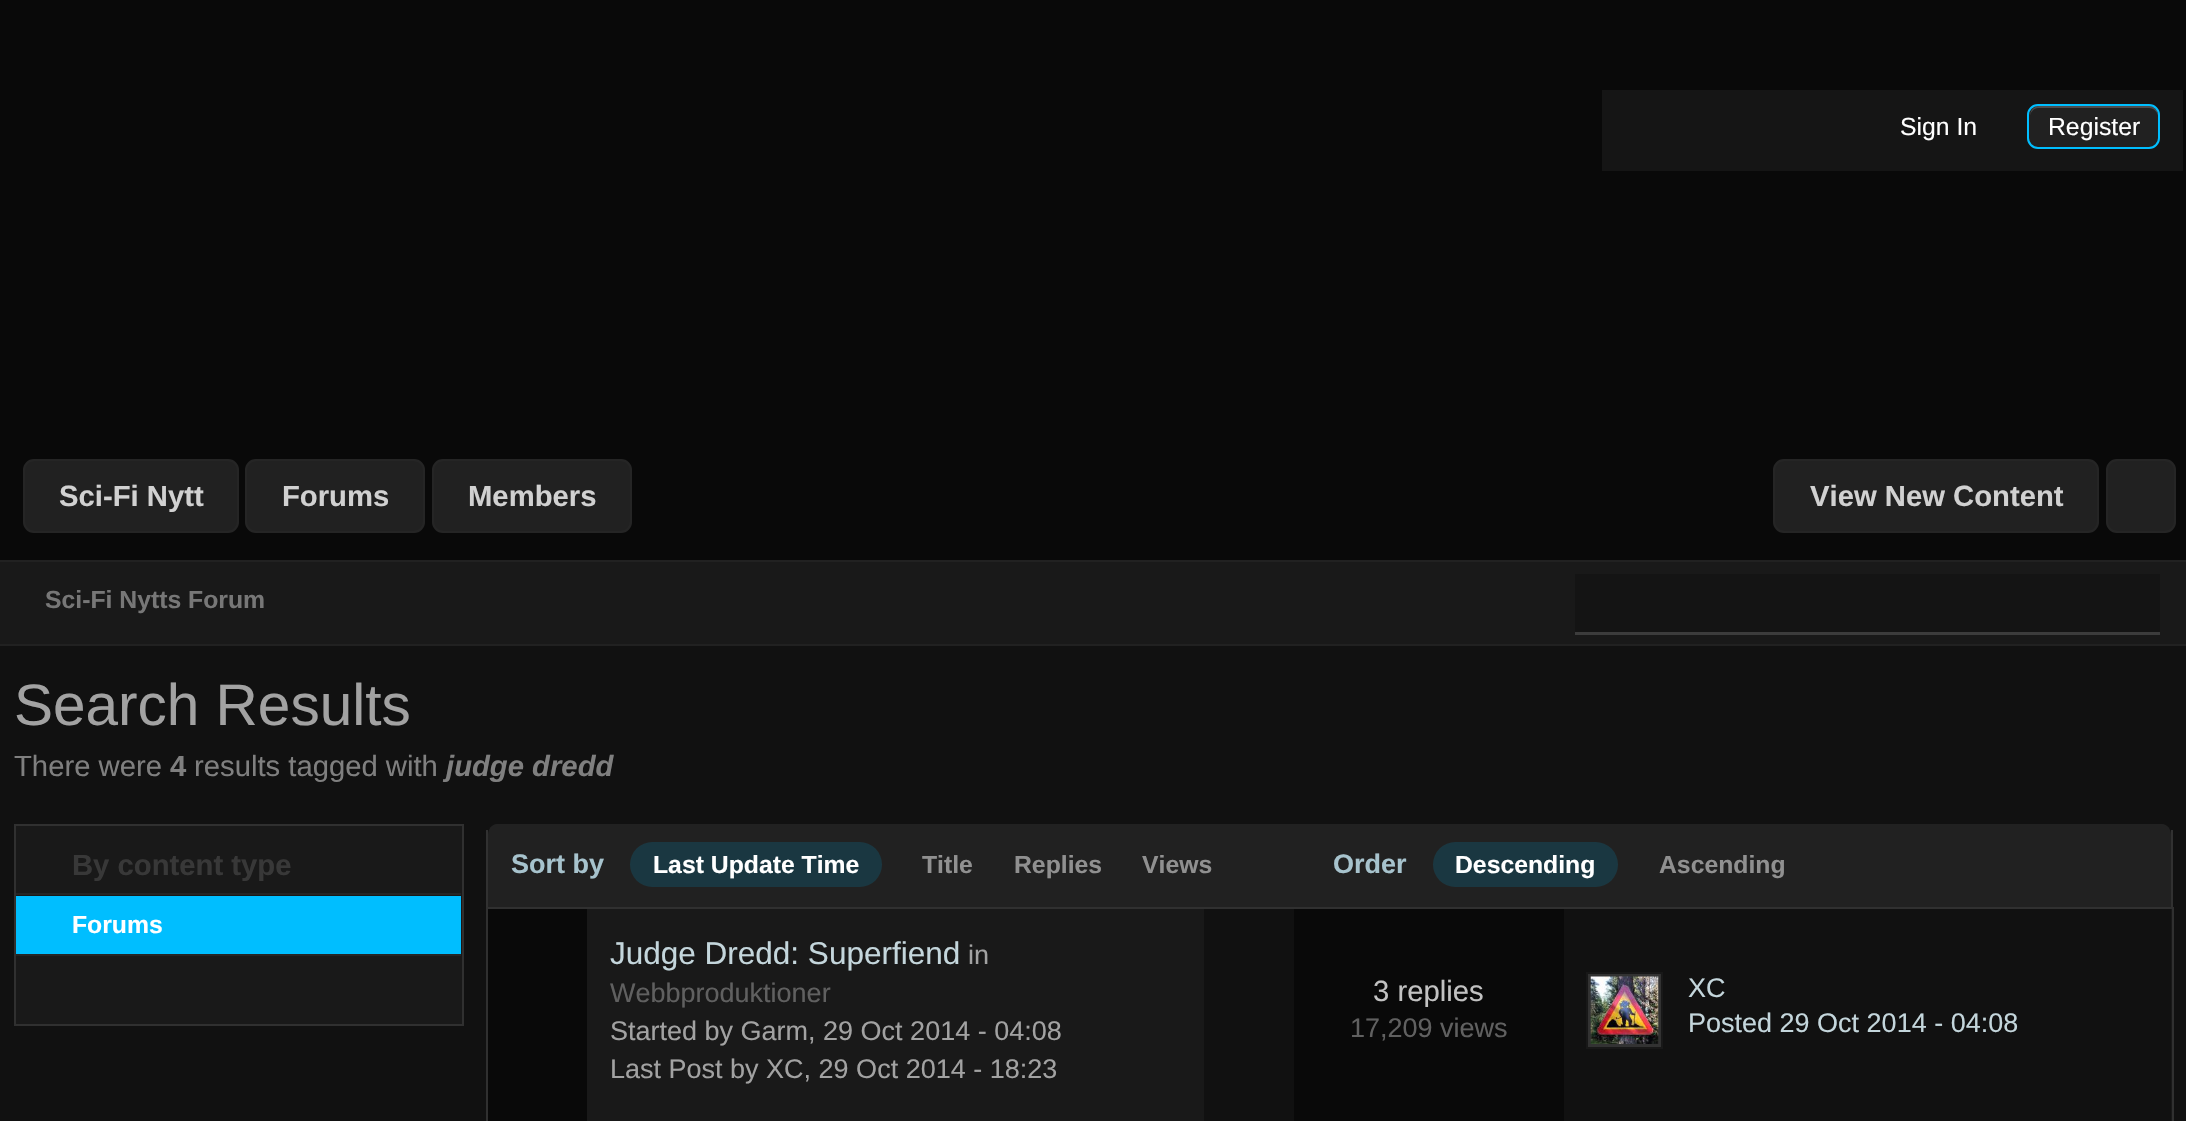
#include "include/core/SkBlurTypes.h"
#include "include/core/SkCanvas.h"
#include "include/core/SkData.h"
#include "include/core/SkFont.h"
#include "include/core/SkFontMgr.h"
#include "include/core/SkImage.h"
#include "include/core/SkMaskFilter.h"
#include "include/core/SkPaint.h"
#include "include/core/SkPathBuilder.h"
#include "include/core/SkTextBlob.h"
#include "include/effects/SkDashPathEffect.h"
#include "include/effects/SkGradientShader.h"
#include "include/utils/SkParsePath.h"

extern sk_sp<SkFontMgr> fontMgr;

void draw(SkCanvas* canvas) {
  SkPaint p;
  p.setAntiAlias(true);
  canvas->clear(SkColorSetRGB(9, 9, 9));
  p.setColor(SkColorSetRGB(21, 21, 21));
  canvas->drawRect(SkRect::MakeLTRB(1602, 90, 2183, 171), p);
  p.setColor(SkColorSetRGB(33, 33, 33));
  canvas->drawRoundRect(SkRect::MakeLTRB(2027, 104, 2160, 149), 11, 11, p);
  p.setColor(SkColorSetRGB(77, 77, 77));
  canvas->drawPath(SkPathBuilder().moveTo(2038, 108).lineTo(2149, 108).cubicTo(2154, 108, 2158, 112, 2158, 117).cubicTo(2158, 102, 2142, 106, 2131, 106).lineTo(2057, 106).cubicTo(2046, 106, 2030, 102, 2030, 117).cubicTo(2030, 112, 2034, 108, 2038, 108).close().detach(), p);
  p.setStyle(SkPaint::kStroke_Style);
  p.setStrokeWidth(2);
  p.setColor(SkColorSetRGB(0, 190, 255));
  canvas->drawRoundRect(SkRect::MakeLTRB(2028, 105, 2159, 148), 10, 10, p);
  p.setStyle(SkPaint::kFill_Style);
  p.setColor(SkColorSetRGB(33, 33, 33));
  canvas->drawRoundRect(SkRect::MakeLTRB(24, 460, 238, 532), 10, 10, p);
  p.setStyle(SkPaint::kStroke_Style);
  p.setColor(SkColorSetRGB(37, 37, 37));
  canvas->drawRoundRect(SkRect::MakeLTRB(24, 460, 238, 532), 10, 10, p);
  p.setStyle(SkPaint::kFill_Style);
  p.setColor(SkColorSetRGB(33, 33, 33));
  canvas->drawRoundRect(SkRect::MakeLTRB(246, 460, 424, 532), 10, 10, p);
  p.setStyle(SkPaint::kStroke_Style);
  p.setColor(SkColorSetRGB(37, 37, 37));
  canvas->drawRoundRect(SkRect::MakeLTRB(246, 460, 424, 532), 10, 10, p);
  p.setStyle(SkPaint::kFill_Style);
  p.setColor(SkColorSetRGB(33, 33, 33));
  canvas->drawRoundRect(SkRect::MakeLTRB(433, 460, 631, 532), 10, 10, p);
  p.setStyle(SkPaint::kStroke_Style);
  p.setColor(SkColorSetRGB(37, 37, 37));
  canvas->drawRoundRect(SkRect::MakeLTRB(433, 460, 631, 532), 10, 10, p);
  p.setStyle(SkPaint::kFill_Style);
  p.setColor(SkColorSetRGB(33, 33, 33));
  canvas->drawRoundRect(SkRect::MakeLTRB(1774, 460, 2098, 532), 10, 10, p);
  p.setStyle(SkPaint::kStroke_Style);
  p.setColor(SkColorSetRGB(37, 37, 37));
  canvas->drawRoundRect(SkRect::MakeLTRB(1774, 460, 2098, 532), 10, 10, p);
  p.setStyle(SkPaint::kFill_Style);
  p.setColor(SkColorSetRGB(33, 33, 33));
  canvas->drawRoundRect(SkRect::MakeLTRB(2107, 460, 2175, 532), 10, 10, p);
  p.setStyle(SkPaint::kStroke_Style);
  p.setColor(SkColorSetRGB(37, 37, 37));
  canvas->drawRoundRect(SkRect::MakeLTRB(2107, 460, 2175, 532), 10, 10, p);
  p.setStyle(SkPaint::kFill_Style);
  p.setColor(SkColorSetRGB(25, 25, 25));
  canvas->drawRect(SkRect::MakeLTRB(0, 562, 2186, 644), p);
  p.setColor(SkColorSetRGB(33, 33, 33));
  canvas->drawRect(SkRect::MakeLTRB(0, 560, 2186, 562), p);
  canvas->drawRect(SkRect::MakeLTRB(0, 644, 2186, 646), p);
  p.setColor(SkColorSetRGB(60, 60, 60));
  canvas->drawRect(SkRect::MakeLTRB(1575, 632, 2160, 635), p);
  p.setColor(SkColorSetRGB(20, 20, 20));
  canvas->drawRect(SkRect::MakeLTRB(1575, 574, 2160, 632), p);
  p.setColor(SkColorSetRGB(17, 17, 17));
  canvas->drawRect(SkRect::MakeLTRB(0, 646, 2186, 1121), p);
  p.setColor(SkColorSetRGB(25, 25, 25));
  canvas->drawRect(SkRect::MakeLTRB(15, 825, 463, 1025), p);
  p.setStyle(SkPaint::kStroke_Style);
  p.setColor(SkColorSetRGB(48, 48, 48));
  canvas->drawRect(SkRect::MakeLTRB(15, 825, 463, 1025), p);
  p.setStyle(SkPaint::kFill_Style);
  p.setColor(SkColorSetRGB(37, 37, 37));
  canvas->drawRect(SkRect::MakeLTRB(16, 893, 461, 895), p);
  canvas->drawRect(SkRect::MakeLTRB(16, 954, 461, 956), p);
  p.setColor(SkColorSetRGB(0, 190, 255));
  canvas->drawRect(SkRect::MakeLTRB(16, 896, 461, 954), p);
  p.setColor(SkColorSetRGB(33, 33, 33));
  canvas->drawPath(SkPathBuilder().moveTo(497, 824).lineTo(2162, 824).cubicTo(2167, 824, 2171, 829, 2171, 835).lineTo(2171, 907).lineTo(488, 907).lineTo(488, 835).cubicTo(488, 829, 492, 824, 497, 824).close().detach(), p);
  p.setColor(SkColorSetRGB(49, 49, 49));
  canvas->drawRect(SkRect::MakeLTRB(2171, 830, 2173, 907), p);
  canvas->drawRect(SkRect::MakeLTRB(486, 830, 488, 907), p);
  p.setColor(SkColorSetRGB(26, 55, 65));
  canvas->drawRoundRect(SkRect::MakeLTRB(630, 842, 882, 887), 22.5f, 22.5f, p);
  canvas->drawRoundRect(SkRect::MakeLTRB(1433, 842, 1618, 887), 22.5f, 22.5f, p);
  p.setColor(SkColorSetRGB(25, 25, 25));
  canvas->drawRect(SkRect::MakeLTRB(587, 909, 2172, 1121), p);
  p.setStyle(SkPaint::kStroke_Style);
  p.setColor(SkColorSetRGB(48, 48, 48));
  canvas->drawRect(SkRect::MakeLTRB(487, 908, 2173, 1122), p);
  p.setStyle(SkPaint::kFill_Style);
  p.setColor(SkColorSetRGB(9, 9, 9));
  canvas->drawRect(SkRect::MakeLTRB(488, 909, 587, 1121), p);
  p.setColor(SkColorSetRGB(17, 17, 17));
  canvas->drawRect(SkRect::MakeLTRB(1204, 909, 1294, 1121), p);
  p.setColor(SkColorSetRGB(9, 9, 9));
  canvas->drawRect(SkRect::MakeLTRB(1294, 909, 1564, 1121), p);
  p.setColor(SkColorSetRGB(17, 17, 17));
  canvas->drawRect(SkRect::MakeLTRB(1564, 909, 2171, 1121), p);
  p.setColor(SkColorSetRGB(50, 50, 50));
  canvas->drawRect(SkRect::MakeLTRB(1587, 973, 1662, 1048), p);
  p.setStyle(SkPaint::kStroke_Style);
  p.setColor(SkColorSetRGB(24, 24, 24));
  canvas->drawRect(SkRect::MakeLTRB(1587, 973, 1662, 1048), p);
  canvas->drawImageRect(SkImages::DeferredFromEncodedData(SkData::MakeFromFileName("images/1.png")), SkRect::MakeLTRB(1590, 976, 1659, 1044), SkSamplingOptions());
  SkFont font1(fontMgr->matchFamilyStyle("Liberation Sans", SkFontStyle::Normal()), 24.75f);
  font1.setSubpixel(true);
  p.setStyle(SkPaint::kFill_Style);
  p.setColor(SK_ColorWHITE);
  canvas->drawString("Sign In", 1900, 135, font1, p);
  canvas->drawString("Register", 2048, 135, font1, p);
  SkFont font2(fontMgr->matchFamilyStyle("Liberation Sans", SkFontStyle::Bold()), 29.25f);
  font2.setSubpixel(true);
  p.setColor(SkColorSetRGB(209, 209, 209));
  canvas->drawString("Sci-Fi Nytt", 59, 506, font2, p);
  canvas->drawString("Forums", 282, 506, font2, p);
  canvas->drawString("Members", 468, 506, font2, p);
  canvas->drawString("View New Content", 1810, 506, font2, p);
  SkFont font3(fontMgr->matchFamilyStyle("Liberation Sans", SkFontStyle::Bold()), 24.75f);
  font3.setSubpixel(true);
  p.setColor(SkColorSetRGB(119, 119, 119));
  canvas->drawString("Sci-Fi Nytts Forum", 45, 608, font3, p);
  SkFont font4(fontMgr->matchFamilyStyle("Liberation Sans", SkFontStyle::Normal()), 58.5f);
  font4.setSubpixel(true);
  p.setColor(SkColorSetRGB(162, 162, 162));
  canvas->drawString("Search Results", 14, 725, font4, p);
  SkFont font5(fontMgr->matchFamilyStyle("Liberation Sans", SkFontStyle::Normal()), 29.25f);
  font5.setSubpixel(true);
  p.setColor(SkColorSetRGB(127, 127, 127));
  canvas->drawString("There were", 14, 776, font5, p);
  canvas->drawString("4", 170, 776, font2, p);
  canvas->drawString("results tagged with", 194, 776, font5, p);
  SkFont font6(fontMgr->matchFamilyStyle("Liberation Sans", SkFontStyle::BoldItalic()), 29.25f);
  font6.setSubpixel(true);
  canvas->drawString("judge dredd", 446, 776, font6, p);
  p.setColor(SkColorSetRGB(56, 56, 56));
  canvas->drawString("By content type", 72, 875, font2, p);
  p.setColor(SK_ColorWHITE);
  canvas->drawString("Forums", 72, 933, font3, p);
  SkFont font7(fontMgr->matchFamilyStyle("Liberation Sans", SkFontStyle::Bold()), 27);
  font7.setSubpixel(true);
  p.setColor(SkColorSetRGB(167, 195, 205));
  canvas->drawString("Sort by", 511, 873, font7, p);
  p.setColor(SK_ColorWHITE);
  canvas->drawString("Last Update Time", 653, 873, font3, p);
  p.setColor(SkColorSetRGB(144, 144, 144));
  canvas->drawString("Title", 922, 873, font3, p);
  canvas->drawString("Replies", 1014, 873, font3, p);
  canvas->drawString("Views", 1142, 873, font3, p);
  p.setColor(SkColorSetRGB(167, 195, 205));
  canvas->drawString("Order", 1333, 873, font7, p);
  p.setColor(SK_ColorWHITE);
  canvas->drawString("Descending", 1455, 873, font3, p);
  p.setColor(SkColorSetRGB(144, 144, 144));
  canvas->drawString("Ascending", 1659, 873, font3, p);
  SkFont font8(fontMgr->matchFamilyStyle("Liberation Sans", SkFontStyle::Normal()), 31.5f);
  font8.setSubpixel(true);
  p.setColor(SkColorSetRGB(196, 214, 220));
  canvas->drawString("Judge Dredd: Superfiend", 610, 964, font8, p);
  SkFont font9(fontMgr->matchFamilyStyle("Liberation Sans", SkFontStyle::Normal()), 27);
  font9.setSubpixel(true);
  p.setColor(SkColorSetRGB(162, 162, 162));
  canvas->drawString("in", 968, 964, font9, p);
  p.setColor(SkColorSetRGB(96, 96, 96));
  canvas->drawString("Webbproduktioner", 610, 1002, font9, p);
  p.setColor(SkColorSetRGB(162, 162, 162));
  canvas->drawString("Started by Garm, 29 Oct 2014 - 04:08", 610, 1040, font9, p);
  canvas->drawString("Last Post by XC, 29 Oct 2014 - 18:23", 610, 1078, font9, p);
  p.setColor(SkColorSetRGB(194, 194, 194));
  canvas->drawString("3 replies", 1373, 1001, font5, p);
  p.setColor(SkColorSetRGB(96, 96, 96));
  canvas->drawString("17,209 views", 1350, 1037, font9, p);
  p.setColor(SkColorSetRGB(196, 214, 220));
  canvas->drawString("XC", 1688, 997, font9, p);
  canvas->drawString("Posted 29 Oct 2014 - 04:08", 1688, 1032, font9, p);
}
